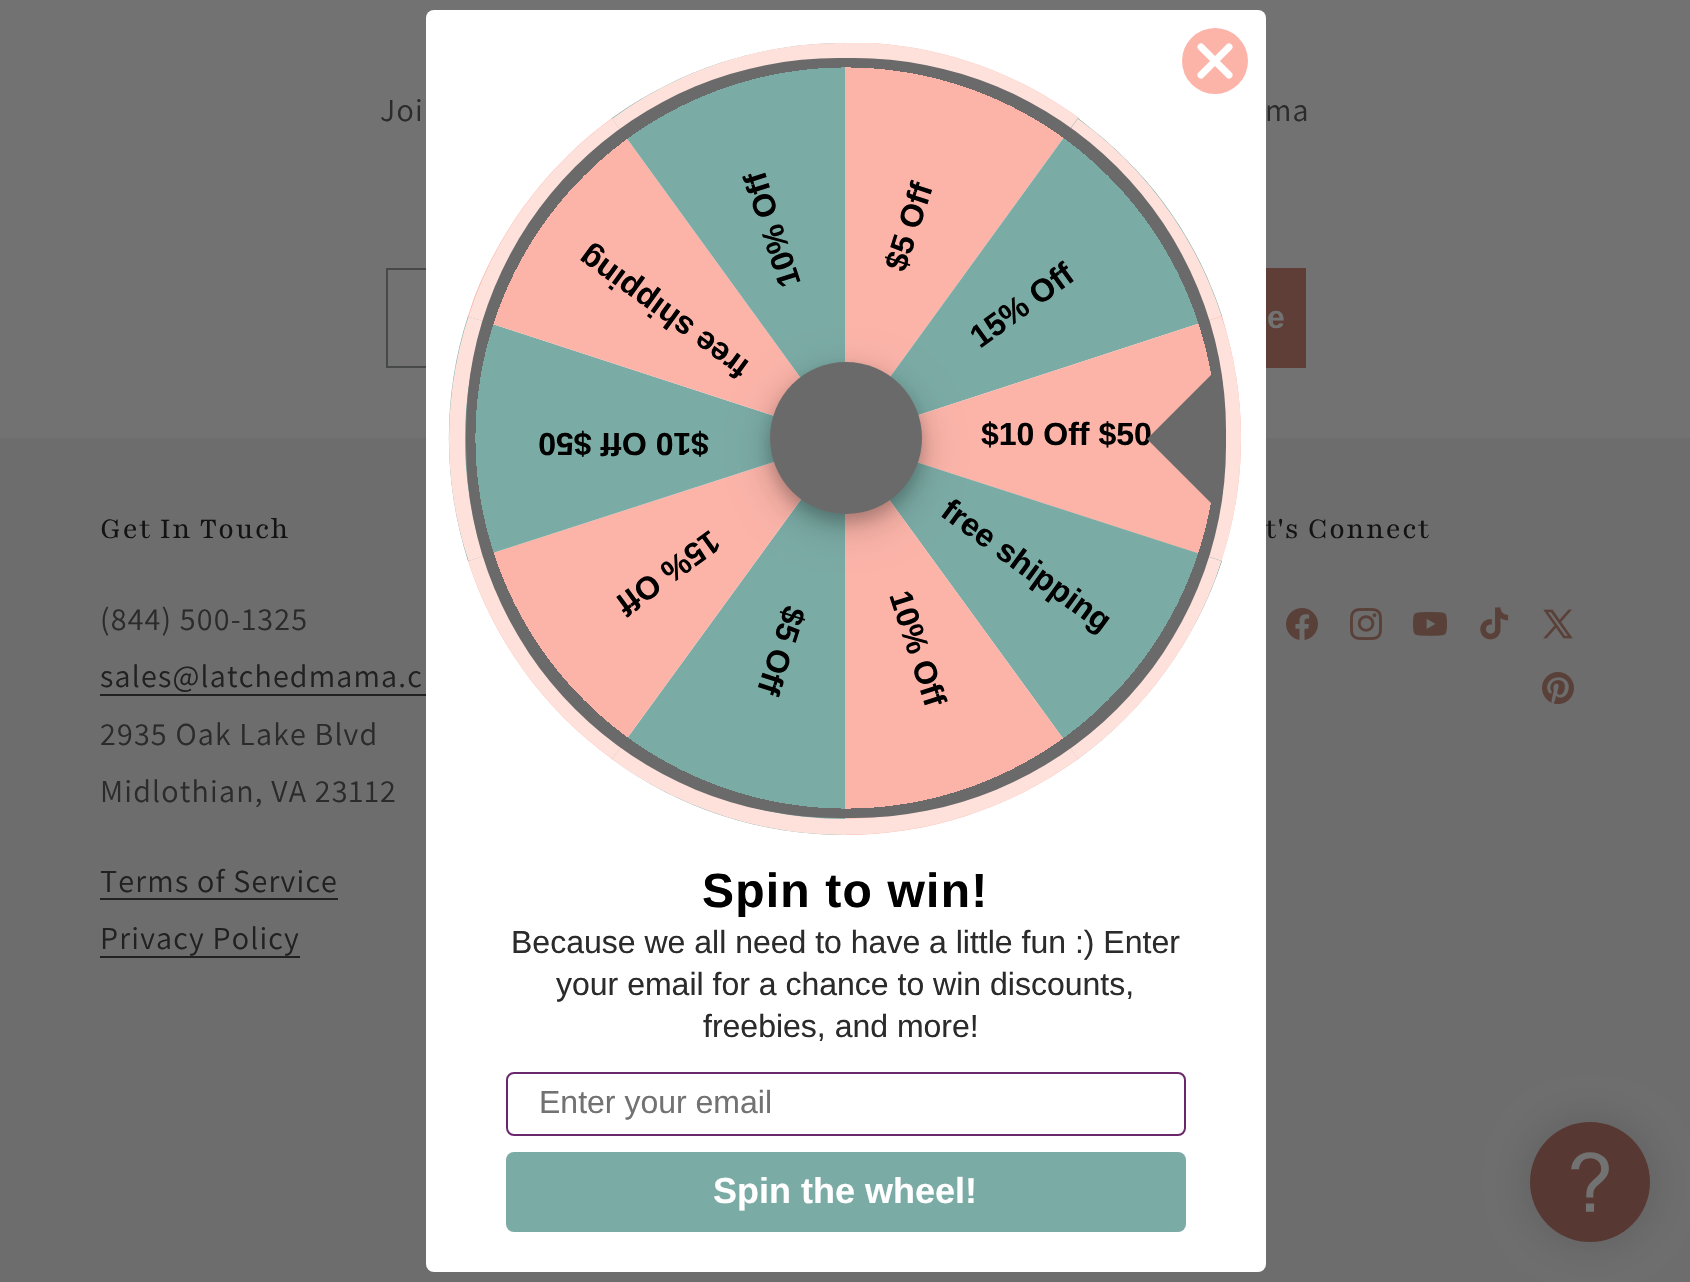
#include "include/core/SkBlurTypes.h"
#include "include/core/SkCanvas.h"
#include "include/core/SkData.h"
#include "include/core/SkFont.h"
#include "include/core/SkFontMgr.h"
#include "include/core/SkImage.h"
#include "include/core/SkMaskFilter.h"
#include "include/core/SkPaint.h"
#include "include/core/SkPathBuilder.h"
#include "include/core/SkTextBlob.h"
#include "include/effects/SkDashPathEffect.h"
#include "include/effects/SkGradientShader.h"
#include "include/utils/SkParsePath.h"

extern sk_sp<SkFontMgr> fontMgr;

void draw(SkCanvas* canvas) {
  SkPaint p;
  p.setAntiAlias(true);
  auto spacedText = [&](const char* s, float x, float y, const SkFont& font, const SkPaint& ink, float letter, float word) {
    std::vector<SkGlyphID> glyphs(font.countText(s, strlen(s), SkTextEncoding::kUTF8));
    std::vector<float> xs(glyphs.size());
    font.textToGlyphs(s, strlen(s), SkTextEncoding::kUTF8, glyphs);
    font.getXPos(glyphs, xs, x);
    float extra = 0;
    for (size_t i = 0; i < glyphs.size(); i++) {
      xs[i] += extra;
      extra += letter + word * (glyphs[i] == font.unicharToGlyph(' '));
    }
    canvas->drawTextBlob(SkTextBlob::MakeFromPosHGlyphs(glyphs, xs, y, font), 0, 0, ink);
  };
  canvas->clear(SkColorSetRGB(114, 114, 114));
  p.setStyle(SkPaint::kStroke_Style);
  p.setStrokeWidth(2);
  p.setColor(SkColorSetRGB(71, 72, 72));
  canvas->drawRect(SkRect::MakeLTRB(387, 269, 1109, 367), p);
  p.setStyle(SkPaint::kFill_Style);
  p.setColor(SkColorSetRGB(94, 62, 54));
  canvas->drawRect(SkRect::MakeLTRB(1266, 268, 1306, 368), p);
  p.setColor(SkColorSetRGB(109, 109, 109));
  canvas->drawRect(SkRect::MakeLTRB(0, 438, 1690, 1282), p);
  p.setColor(SkColorSetRGB(33, 33, 33));
  canvas->drawRect(SkRect::MakeLTRB(100, 694, 426, 696), p);
  canvas->drawRect(SkRect::MakeLTRB(100, 898, 338, 900), p);
  canvas->drawRect(SkRect::MakeLTRB(100, 956, 300, 958), p);
  canvas->drawImageRect(SkImages::DeferredFromEncodedData(SkData::MakeFromFileName("images/1.png")), SkRect::MakeLTRB(1286, 608, 1318, 640), SkSamplingOptions());
  canvas->drawImageRect(SkImages::DeferredFromEncodedData(SkData::MakeFromFileName("images/2.png")), SkRect::MakeLTRB(1350, 608, 1382, 640), SkSamplingOptions());
  canvas->drawImageRect(SkImages::DeferredFromEncodedData(SkData::MakeFromFileName("images/3.png")), SkRect::MakeLTRB(1413, 612, 1447, 636), SkSamplingOptions());
  canvas->drawImageRect(SkImages::DeferredFromEncodedData(SkData::MakeFromFileName("images/4.png")), SkRect::MakeLTRB(1480, 607, 1509, 640), SkSamplingOptions());
  canvas->drawImageRect(SkImages::DeferredFromEncodedData(SkData::MakeFromFileName("images/5.png")), SkRect::MakeLTRB(1543, 609, 1573, 639), SkSamplingOptions());
  canvas->drawImageRect(SkImages::DeferredFromEncodedData(SkData::MakeFromFileName("images/6.png")), SkRect::MakeLTRB(1542, 672, 1574, 705), SkSamplingOptions());
  p.setColor(SkColorSetARGB(38, 12, 12, 12));
  p.setMaskFilter(SkMaskFilter::MakeBlur(kNormal_SkBlurStyle, 20));
  canvas->drawRoundRect(SkRect::MakeLTRB(1530, 1122, 1650, 1242), 60, 60, p);
  p.setMaskFilter(nullptr);
  canvas->drawImageRect(SkImages::DeferredFromEncodedData(SkData::MakeFromFileName("images/7.png")), SkRect::MakeLTRB(1530, 1122, 1650, 1242), SkSamplingOptions());
  SkFont font1(fontMgr->matchFamilyStyle("Assistant", SkFontStyle(200, SkFontStyle::kNormal_Width, SkFontStyle::kUpright_Slant)), 32);
  font1.setSubpixel(true);
  p.setColor(SkColorSetRGB(43, 43, 43));
  spacedText("Joi", 380, 121, font1, p, 1.2f, 0);
  spacedText("ma", 1265, 121, font1, p, 1.2f, 0);
  SkFont font2(fontMgr->matchFamilyStyle("Liberation Sans", SkFontStyle::Bold()), 32);
  font2.setSubpixel(true);
  p.setColor(SkColorSetRGB(114, 114, 114));
  canvas->drawString("e", 1267, 328, font2, p);
  SkFont font3(fontMgr->matchFamilyStyle("Playfair", SkFontStyle::Normal()), 32);
  font3.setSubpixel(true);
  p.setColor(SkColorSetRGB(19, 19, 19));
  spacedText("Get In Touch", 100, 538, font3, p, 1.2f, 0);
  p.setColor(SkColorSetRGB(43, 43, 43));
  spacedText("(844) 500-1325", 100, 630, font1, p, 1.2f, 0);
  p.setColor(SkColorSetRGB(33, 33, 33));
  spacedText("sales@latchedmama.c", 100, 687, font1, p, 1.2f, 0);
  p.setColor(SkColorSetRGB(43, 43, 43));
  spacedText("2935 Oak Lake Blvd", 100, 745, font1, p, 1.2f, 0);
  spacedText("Midlothian, VA 23112", 100, 802, font1, p, 1.2f, 0);
  p.setColor(SkColorSetRGB(33, 33, 33));
  spacedText("Terms of Service", 100, 892, font1, p, 1.2f, 0);
  spacedText("Privacy Policy", 100, 949, font1, p, 1.2f, 0);
  p.setColor(SkColorSetRGB(19, 19, 19));
  spacedText("t's Connect", 1265, 538, font3, p, 1.2f, 0);
  p.setColor(SK_ColorWHITE);
  canvas->drawRoundRect(SkRect::MakeLTRB(426, 10, 1266, 1272), 8, 8, p);
  p.setColor(SkColorSetRGB(252, 180, 169));
  canvas->drawPath(SkPathBuilder().moveTo(845, 439).lineTo(845, 43).lineTo(872, 43).cubicTo(949, 48, 1020, 75, 1079, 118).lineTo(1078, 118).close().detach(), p);
  p.setColor(SK_ColorBLACK);
  canvas->save();
  canvas->rotate(-72, 905, 273);
  canvas->drawString("$5 Off", 905, 273, font2, p);
  canvas->restore();
  p.setColor(SkColorSetRGB(254, 225, 219));
  canvas->drawPath(SkPathBuilder().moveTo(846, 58).lineTo(845, 58).lineTo(845, 43).lineTo(872, 43).cubicTo(949, 48, 1020, 75, 1079, 118).lineTo(1078, 118).lineTo(1069, 130).cubicTo(1006, 85, 929, 58, 846, 58).close().detach(), p);
  p.setColor(SkColorSetRGB(123, 171, 165));
  canvas->drawPath(SkPathBuilder().moveTo(845, 439).lineTo(1078, 118).lineTo(1093, 130).cubicTo(1156, 180, 1199, 245, 1222, 316).close().detach(), p);
  canvas->save();
  canvas->clipPath(SkPathBuilder().moveTo(845, 439).lineTo(1078, 118.5f).lineTo(1398, 351).lineTo(1221.5f, 316.5f).close().detach(), true);
  p.setStyle(SkPaint::kStroke_Style);
  p.setStrokeWidth(16);
  p.setColor(SkColorSetRGB(254, 225, 219));
  canvas->drawPath(SkPathBuilder().moveTo(1073, 125).cubicTo(1246.5f, 251, 1285, 493.5f, 1159, 667).cubicTo(1033, 840, 790.5f, 878.5f, 617, 752.5f).cubicTo(443.5f, 627, 405, 384, 531, 211).cubicTo(657, 37.5f, 899.5f, -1, 1073, 125).close().detach(), p);
  canvas->restore();
  p.setStyle(SkPaint::kFill_Style);
  p.setColor(SK_ColorBLACK);
  canvas->save();
  canvas->rotate(-36, 980, 349);
  canvas->drawString("15% Off", 980, 349, font2, p);
  canvas->restore();
  p.setColor(SkColorSetRGB(252, 180, 169));
  canvas->drawPath(SkPathBuilder().moveTo(845, 439).lineTo(1222, 316).lineTo(1227, 334).cubicTo(1248, 411, 1245, 490, 1221, 561).close().detach(), p);
  p.setColor(SK_ColorBLACK);
  canvas->drawString("$10 Off $50", 981, 445, font2, p);
  canvas->save();
  canvas->clipPath(SkPathBuilder().moveTo(845, 439).lineTo(1221.5f, 316.5f).lineTo(1344, 693).lineTo(1221.5f, 561).close().detach(), true);
  p.setStyle(SkPaint::kStroke_Style);
  p.setColor(SkColorSetRGB(254, 225, 219));
  canvas->drawPath(SkPathBuilder().moveTo(1214, 319).cubicTo(1280, 522.5f, 1168.5f, 741.5f, 965, 808).cubicTo(761, 874, 542, 762.5f, 476, 558.5f).cubicTo(410, 355, 521.5f, 136, 725, 70).cubicTo(929, 3.5f, 1148, 115, 1214, 319).close().detach(), p);
  canvas->restore();
  p.setStyle(SkPaint::kFill_Style);
  p.setColor(SkColorSetRGB(123, 171, 165));
  canvas->drawPath(SkPathBuilder().moveTo(845, 439).lineTo(1222, 561).cubicTo(1196, 640, 1145, 710, 1078, 759).close().detach(), p);
  p.setColor(SkColorSetRGB(107, 106, 106));
  canvas->drawPath(SkPathBuilder().moveTo(1223, 492).cubicTo(1222, 497, 1218, 502, 1214, 506).lineTo(1147, 439).lineTo(1215, 371).cubicTo(1219, 374, 1222, 379, 1223, 384).close().detach(), p);
  canvas->save();
  canvas->clipPath(SkPathBuilder().moveTo(845, 439).lineTo(1221.5f, 561).lineTo(1099, 938).lineTo(1078, 759).close().detach(), true);
  p.setStyle(SkPaint::kStroke_Style);
  p.setColor(SkColorSetRGB(254, 225, 219));
  canvas->drawPath(SkPathBuilder().moveTo(1214, 558.5f).cubicTo(1148, 762.5f, 929, 874, 725, 808).cubicTo(521.5f, 741.5f, 410, 522.5f, 476, 319).cubicTo(542, 115, 761, 3.5f, 965, 70).cubicTo(1168.5f, 136, 1280, 355, 1214, 558.5f).close().detach(), p);
  canvas->restore();
  p.setStyle(SkPaint::kFill_Style);
  p.setColor(SK_ColorBLACK);
  canvas->save();
  canvas->rotate(36, 939, 515);
  canvas->drawString("free shipping", 939, 515, font2, p);
  canvas->restore();
  p.setColor(SkColorSetRGB(252, 180, 169));
  canvas->drawPath(SkPathBuilder().moveTo(845, 439).lineTo(1078, 759).cubicTo(1007, 810, 926, 835, 845, 835).close().detach(), p);
  canvas->save();
  canvas->clipPath(SkPathBuilder().moveTo(845, 439).lineTo(1078, 759).lineTo(757.5f, 992).lineTo(845, 835).close().detach(), true);
  p.setStyle(SkPaint::kStroke_Style);
  p.setColor(SkColorSetRGB(254, 225, 219));
  canvas->drawPath(SkPathBuilder().moveTo(1073, 752.5f).cubicTo(899.5f, 878.5f, 657, 840, 531, 667).cubicTo(405, 493.5f, 443.5f, 251, 617, 125).cubicTo(790.5f, -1, 1033, 37.5f, 1159, 211).cubicTo(1285, 384, 1246.5f, 627, 1073, 752.5f).close().detach(), p);
  canvas->restore();
  p.setStyle(SkPaint::kFill_Style);
  p.setColor(SkColorSetRGB(123, 171, 165));
  canvas->drawPath(SkPathBuilder().moveTo(845, 439).lineTo(845, 835).cubicTo(762, 835, 679, 809, 612, 759).close().detach(), p);
  p.setColor(SK_ColorBLACK);
  canvas->save();
  canvas->rotate(108, 785, 604);
  canvas->drawString("$5 Off", 785, 604, font2, p);
  canvas->restore();
  canvas->save();
  canvas->clipPath(SkPathBuilder().moveTo(845, 439).lineTo(845, 835).lineTo(449, 835).lineTo(612, 759).close().detach(), true);
  p.setStyle(SkPaint::kStroke_Style);
  p.setColor(SkColorSetRGB(254, 225, 219));
  canvas->drawPath(SkPathBuilder().moveTo(845, 827).cubicTo(630.5f, 827, 457, 653, 457, 439).cubicTo(457, 224.5f, 630.5f, 51, 845, 51).cubicTo(1059.5f, 51, 1233, 224.5f, 1233, 439).cubicTo(1233, 653, 1059.5f, 827, 845, 827).close().detach(), p);
  canvas->restore();
  p.setStyle(SkPaint::kFill_Style);
  p.setColor(SkColorSetRGB(252, 180, 169));
  canvas->drawPath(SkPathBuilder().moveTo(612, 759).lineTo(845, 439).lineTo(468, 561).cubicTo(493, 638, 542, 708, 612, 759).close().detach(), p);
  canvas->save();
  canvas->clipPath(SkPathBuilder().moveTo(845, 439).lineTo(612, 759).lineTo(292, 526.5f).lineTo(468.5f, 561).close().detach(), true);
  p.setStyle(SkPaint::kStroke_Style);
  p.setColor(SkColorSetRGB(254, 225, 219));
  canvas->drawPath(SkPathBuilder().moveTo(617, 752.5f).cubicTo(443.5f, 627, 405, 384, 531, 211).cubicTo(657, 37.5f, 899.5f, -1, 1073, 125).cubicTo(1246.5f, 251, 1285, 493.5f, 1159, 667).cubicTo(1033, 840, 790.5f, 878.5f, 617, 752.5f).close().detach(), p);
  canvas->restore();
  p.setStyle(SkPaint::kFill_Style);
  p.setColor(SK_ColorBLACK);
  canvas->save();
  canvas->rotate(144, 710, 529);
  canvas->drawString("15% Off", 710, 529, font2, p);
  canvas->restore();
  p.setColor(SkColorSetRGB(123, 171, 165));
  canvas->drawPath(SkPathBuilder().moveTo(845, 439).lineTo(468, 561).cubicTo(443, 482, 442, 396, 468, 316).close().detach(), p);
  p.setColor(SK_ColorBLACK);
  canvas->save();
  canvas->rotate(180, 709, 433);
  canvas->drawString("$10 Off $50", 709, 433, font2, p);
  canvas->restore();
  canvas->save();
  canvas->clipPath(SkPathBuilder().moveTo(845, 439).lineTo(468.5f, 561).lineTo(346, 184.5f).lineTo(468.5f, 316.5f).close().detach(), true);
  p.setStyle(SkPaint::kStroke_Style);
  p.setColor(SkColorSetRGB(254, 225, 219));
  canvas->drawPath(SkPathBuilder().moveTo(476, 558.5f).cubicTo(410, 355, 521.5f, 136, 725, 70).cubicTo(929, 3.5f, 1148, 115, 1214, 319).cubicTo(1280, 522.5f, 1168.5f, 741.5f, 965, 808).cubicTo(761, 874, 542, 762.5f, 476, 558.5f).close().detach(), p);
  canvas->restore();
  p.setStyle(SkPaint::kFill_Style);
  p.setColor(SkColorSetRGB(252, 180, 169));
  canvas->drawPath(SkPathBuilder().moveTo(845, 439).lineTo(612, 118).cubicTo(552, 162, 503, 223, 474, 298).lineTo(468, 316).close().detach(), p);
  canvas->save();
  canvas->clipPath(SkPathBuilder().moveTo(845, 439).lineTo(468.5f, 316.5f).lineTo(591, -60).lineTo(612, 118.5f).close().detach(), true);
  p.setStyle(SkPaint::kStroke_Style);
  p.setColor(SkColorSetRGB(254, 225, 219));
  canvas->drawPath(SkPathBuilder().moveTo(476, 319).cubicTo(542, 115, 761, 3.5f, 965, 70).cubicTo(1168.5f, 136, 1280, 355, 1214, 558.5f).cubicTo(1148, 762.5f, 929, 874, 725, 808).cubicTo(521.5f, 741.5f, 410, 522.5f, 476, 319).close().detach(), p);
  canvas->restore();
  p.setStyle(SkPaint::kFill_Style);
  p.setColor(SK_ColorBLACK);
  canvas->save();
  canvas->rotate(-144, 751, 363);
  canvas->drawString("free shipping", 751, 363, font2, p);
  canvas->restore();
  p.setColor(SkColorSetRGB(123, 171, 165));
  canvas->drawPath(SkPathBuilder().moveTo(845, 439).lineTo(845, 43).cubicTo(770, 43, 695, 64, 628, 107).lineTo(612, 118).close().detach(), p);
  p.setColor(SkColorSetARGB(51, 0, 0, 0));
  p.setMaskFilter(SkMaskFilter::MakeBlur(kNormal_SkBlurStyle, 8));
  canvas->drawRoundRect(SkRect::MakeLTRB(770, 370, 922, 522), 76, 76, p);
  p.setMaskFilter(nullptr);
  p.setMaskFilter(SkMaskFilter::MakeBlur(kNormal_SkBlurStyle, 20));
  canvas->drawRoundRect(SkRect::MakeLTRB(770, 374, 922, 526), 76, 76, p);
  p.setMaskFilter(nullptr);
  p.setColor(SkColorSetRGB(107, 106, 106));
  canvas->drawCircle(846, 438, 76, p);
  p.setColor(SK_ColorBLACK);
  canvas->save();
  canvas->rotate(-108, 801, 283);
  canvas->drawString("10% Off", 801, 283, font2, p);
  canvas->restore();
  canvas->save();
  canvas->clipPath(SkPathBuilder().moveTo(845, 439).lineTo(612, 118.5f).lineTo(932.5f, -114.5f).lineTo(845, 43).close().detach(), true);
  p.setStyle(SkPaint::kStroke_Style);
  p.setColor(SkColorSetRGB(254, 225, 219));
  canvas->drawPath(SkPathBuilder().moveTo(617, 125).cubicTo(790.5f, -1, 1033, 37.5f, 1159, 211).cubicTo(1285, 384, 1246.5f, 627, 1073, 752.5f).cubicTo(899.5f, 878.5f, 657, 840, 531, 667).cubicTo(405, 493.5f, 443.5f, 251, 617, 125).close().detach(), p);
  canvas->restore();
  p.setStyle(SkPaint::kFill_Style);
  p.setColor(SK_ColorBLACK);
  canvas->save();
  canvas->rotate(72, 889, 595);
  canvas->drawString("10% Off", 889, 595, font2, p);
  canvas->restore();
  {
    const SkColor colors[] = {SkColorSetARGB(0, 107, 106, 106), SkColorSetRGB(107, 106, 106)};
    const float stops[] = {0.69f, 0.69f};
    p.setShader(SkGradientShader::MakeRadial({846, 438}, 537, colors, stops, 2, SkTileMode::kClamp));
    p.setAlpha(255);
  }
  canvas->drawRoundRect(SkRect::MakeLTRB(466, 58, 1226, 818), 372, 372, p);
  p.setShader(nullptr);
  p.setColor(SkColorSetRGB(252, 180, 169));
  canvas->drawCircle(1215, 61, 33, p);
  p.setStyle(SkPaint::kStroke_Style);
  p.setStrokeWidth(7);
  p.setStrokeCap(SkPaint::kRound_Cap);
  p.setStrokeJoin(SkPaint::kRound_Join);
  p.setColor(SK_ColorWHITE);
  canvas->drawPath(SkPathBuilder().moveTo(1201, 47).lineTo(1229, 75).moveTo(1201, 75).lineTo(1229, 47).close().detach(), p);
  p.setStyle(SkPaint::kFill_Style);
  p.setColor(SkColorSetRGB(123, 171, 165));
  canvas->drawRoundRect(SkRect::MakeLTRB(506, 1152, 1186, 1232), 8, 8, p);
  SkFont font4(fontMgr->matchFamilyStyle("Liberation Sans", SkFontStyle::Bold()), 36);
  font4.setSubpixel(true);
  p.setColor(SK_ColorWHITE);
  canvas->drawString("Spin the wheel!", 713, 1203, font4, p);
  p.setStyle(SkPaint::kStroke_Style);
  p.setStrokeWidth(2);
  p.setStrokeCap(SkPaint::kButt_Cap);
  p.setStrokeJoin(SkPaint::kMiter_Join);
  p.setColor(SkColorSetRGB(107, 39, 108));
  canvas->drawRoundRect(SkRect::MakeLTRB(507, 1073, 1185, 1135), 7, 7, p);
  SkFont font5(fontMgr->matchFamilyStyle("Liberation Sans", SkFontStyle::Normal()), 32);
  font5.setSubpixel(true);
  p.setStyle(SkPaint::kFill_Style);
  p.setColor(SkColorSetRGB(114, 114, 114));
  canvas->drawString("Enter your email", 539, 1113, font5, p);
  p.setColor(SkColorSetRGB(43, 43, 43));
  canvas->drawString("freebies, and more!", 703, 1037, font5, p);
  canvas->drawString("your email for a chance to win discounts,", 556, 995, font5, p);
  canvas->drawString("Because we all need to have a little fun :) Enter", 511, 953, font5, p);
  SkFont font6(fontMgr->matchFamilyStyle("Liberation Sans", SkFontStyle::Bold()), 48);
  font6.setSubpixel(true);
  p.setColor(SK_ColorBLACK);
  spacedText("Spin to win!", 702, 907, font6, p, 1.2f, 0);
}
